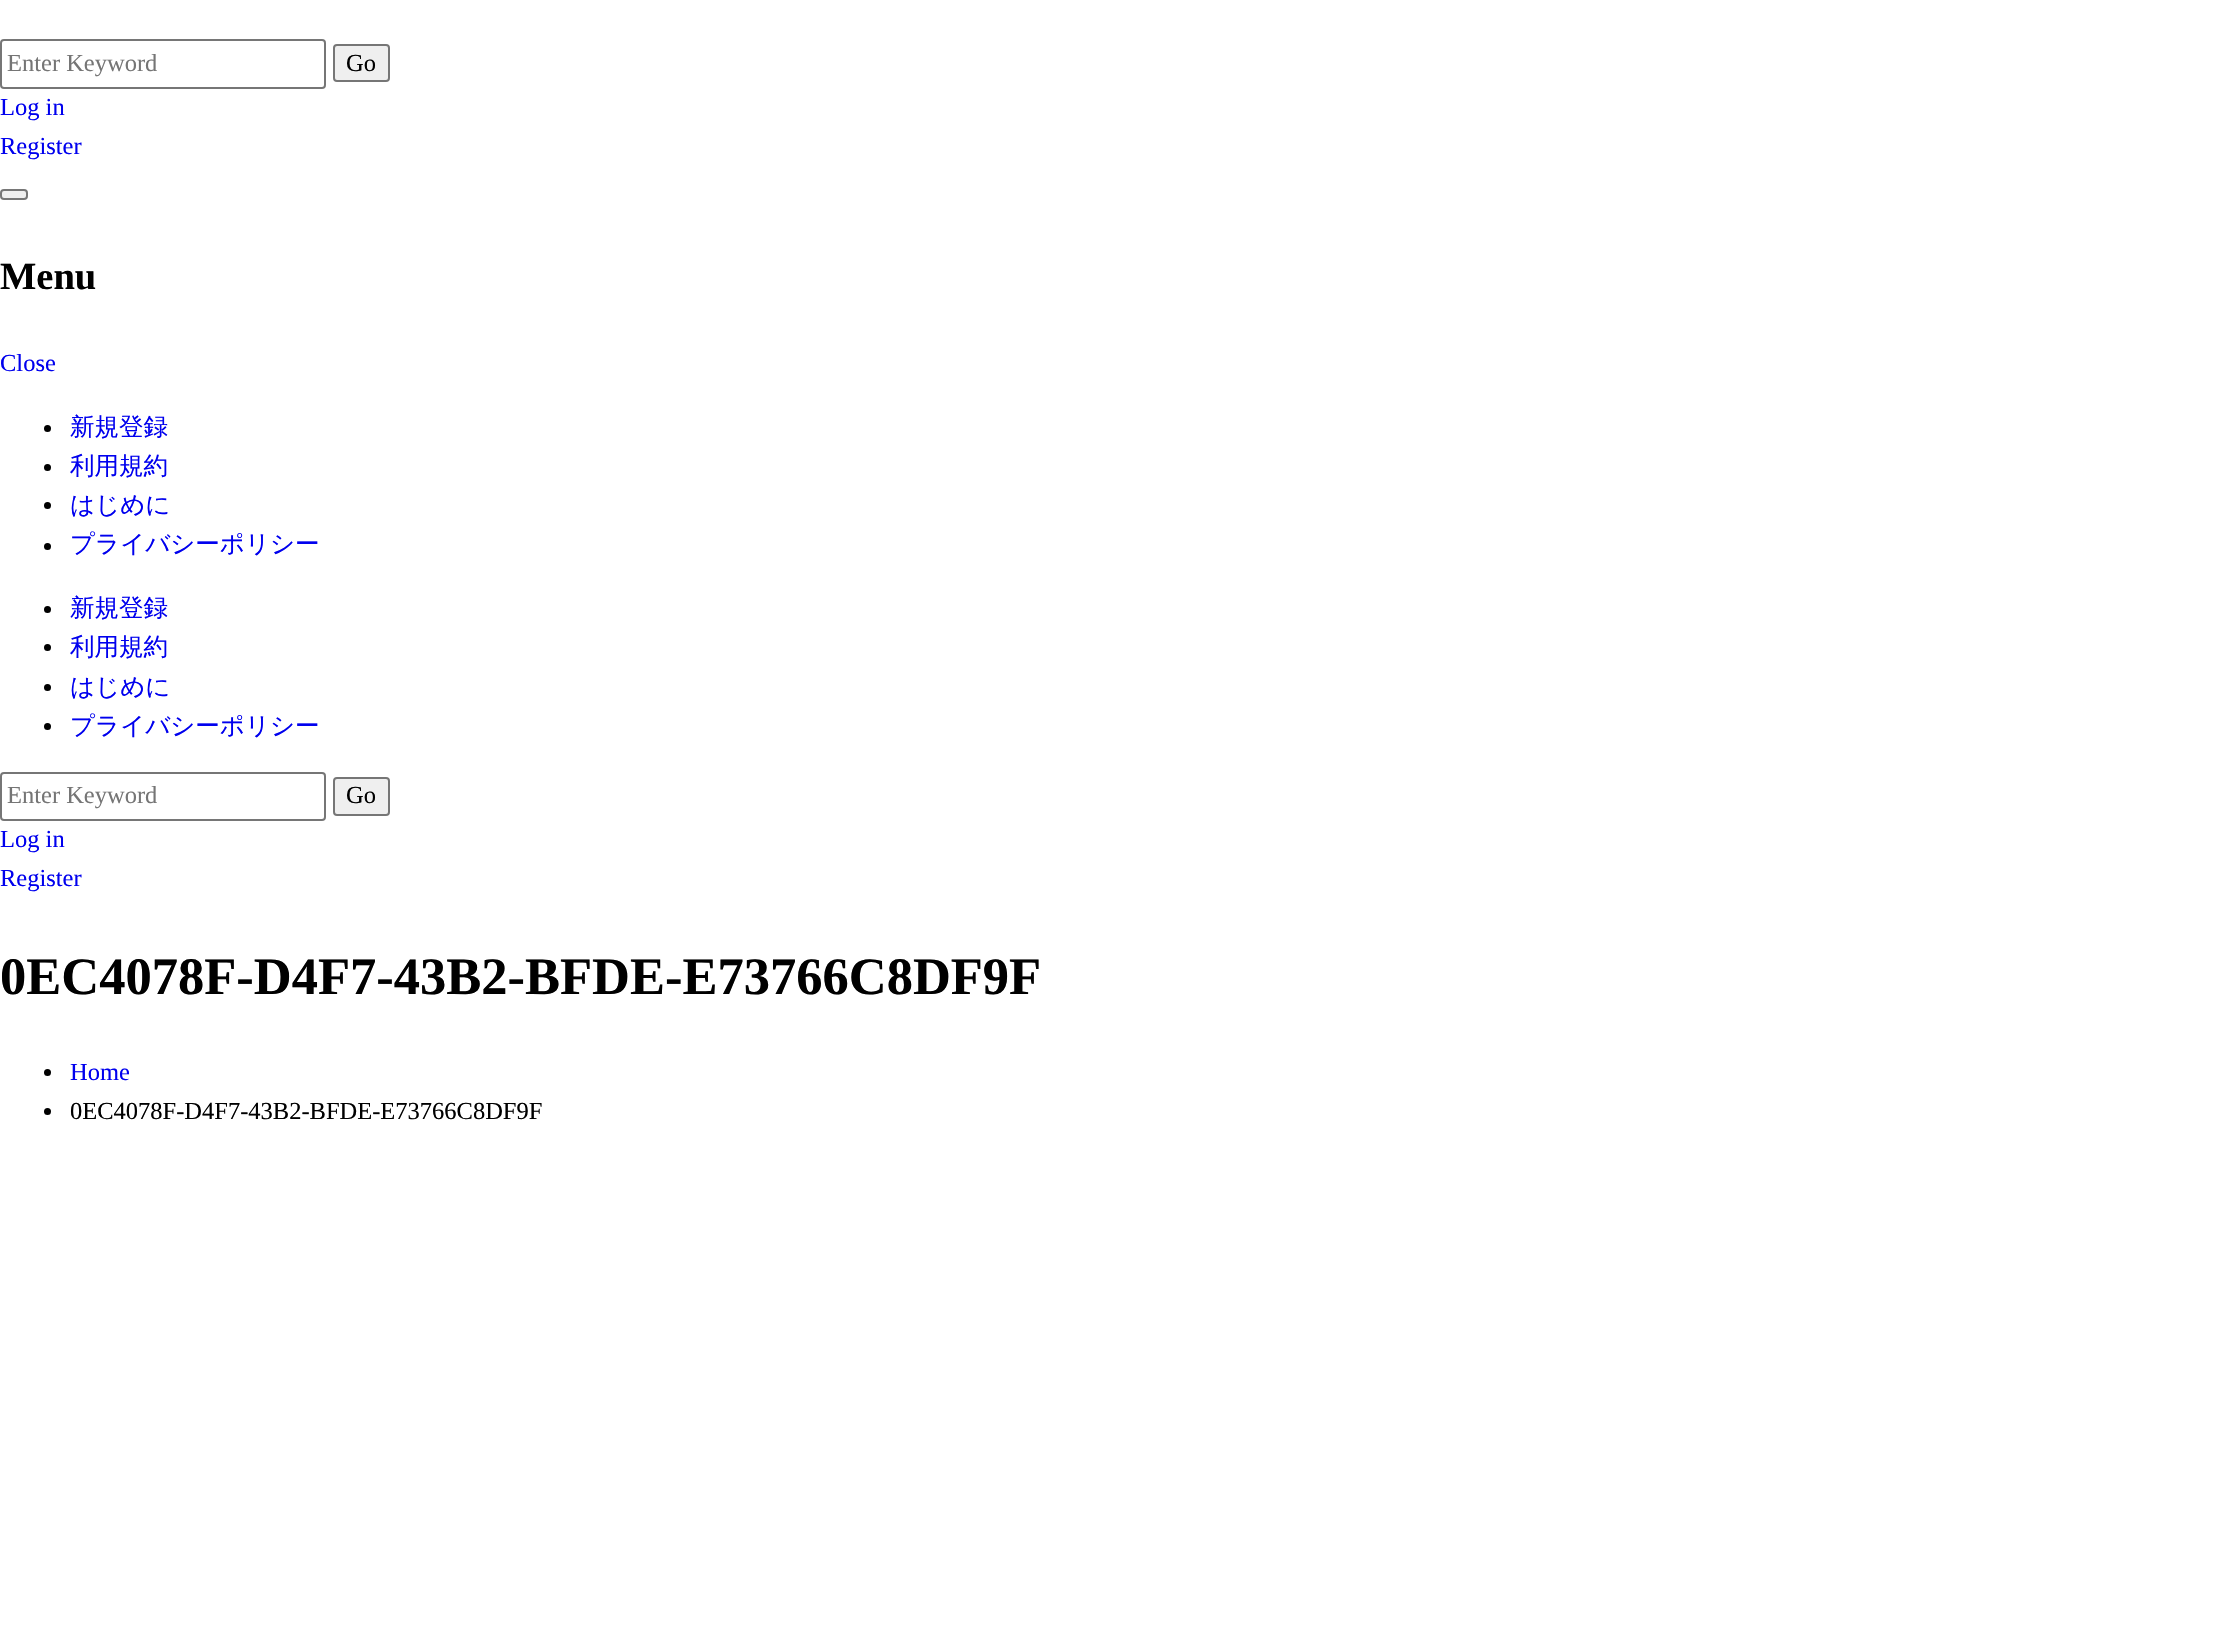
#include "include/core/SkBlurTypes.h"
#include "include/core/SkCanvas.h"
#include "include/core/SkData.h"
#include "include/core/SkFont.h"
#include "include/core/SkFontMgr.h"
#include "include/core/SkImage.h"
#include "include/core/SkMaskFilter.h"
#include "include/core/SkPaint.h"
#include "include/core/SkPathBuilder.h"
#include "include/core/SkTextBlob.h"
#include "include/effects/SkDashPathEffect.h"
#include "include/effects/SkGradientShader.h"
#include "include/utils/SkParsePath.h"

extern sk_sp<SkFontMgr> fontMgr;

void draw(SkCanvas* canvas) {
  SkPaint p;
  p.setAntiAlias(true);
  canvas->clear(SK_ColorWHITE);
  p.setStyle(SkPaint::kStroke_Style);
  p.setStrokeWidth(2);
  p.setColor(SkColorSetRGB(118, 118, 118));
  canvas->drawRoundRect(SkRect::MakeLTRB(1, 40, 325, 88), 3, 3, p);
  p.setStyle(SkPaint::kFill_Style);
  p.setColor(SkColorSetRGB(239, 239, 239));
  canvas->drawRoundRect(SkRect::MakeLTRB(334, 45, 389, 81), 3, 3, p);
  p.setStyle(SkPaint::kStroke_Style);
  p.setColor(SkColorSetRGB(118, 118, 118));
  canvas->drawRoundRect(SkRect::MakeLTRB(334, 45, 389, 81), 3, 3, p);
  p.setStyle(SkPaint::kFill_Style);
  p.setColor(SkColorSetRGB(239, 239, 239));
  canvas->drawRoundRect(SkRect::MakeLTRB(1, 190, 27, 199), 3, 3, p);
  p.setStyle(SkPaint::kStroke_Style);
  p.setColor(SkColorSetRGB(118, 118, 118));
  canvas->drawRoundRect(SkRect::MakeLTRB(1, 190, 27, 199), 3, 3, p);
  p.setStyle(SkPaint::kFill_Style);
  p.setColor(SK_ColorBLACK);
  canvas->drawCircle(47.5f, 428.5f, 3.5f, p);
  canvas->drawCircle(47.5f, 467.5f, 3.5f, p);
  canvas->drawCircle(47.5f, 505.5f, 3.5f, p);
  canvas->drawCircle(47.5f, 546.5f, 3.5f, p);
  canvas->drawCircle(47.5f, 609.5f, 3.5f, p);
  canvas->drawCircle(47.5f, 647.5f, 3.5f, p);
  canvas->drawCircle(47.5f, 687.5f, 3.5f, p);
  canvas->drawCircle(47.5f, 726.5f, 3.5f, p);
  p.setStyle(SkPaint::kStroke_Style);
  p.setColor(SkColorSetRGB(118, 118, 118));
  canvas->drawRoundRect(SkRect::MakeLTRB(1, 773, 325, 820), 3, 3, p);
  p.setStyle(SkPaint::kFill_Style);
  p.setColor(SkColorSetRGB(239, 239, 239));
  canvas->drawRoundRect(SkRect::MakeLTRB(334, 778, 389, 815), 3, 3, p);
  p.setStyle(SkPaint::kStroke_Style);
  p.setColor(SkColorSetRGB(118, 118, 118));
  canvas->drawRoundRect(SkRect::MakeLTRB(334, 778, 389, 815), 3, 3, p);
  p.setStyle(SkPaint::kFill_Style);
  p.setColor(SK_ColorBLACK);
  canvas->drawCircle(47.5f, 1072.5f, 3.5f, p);
  canvas->drawCircle(47.5f, 1111.5f, 3.5f, p);
  SkFont font1(fontMgr->matchFamilyStyle("Liberation Serif", SkFontStyle::Normal()), 24.5f);
  font1.setSubpixel(true);
  p.setColor(SkColorSetRGB(117, 117, 117));
  canvas->drawString("Enter Keyword", 7, 71, font1, p);
  p.setColor(SK_ColorBLACK);
  canvas->drawString("Go", 346, 71, font1, p);
  p.setColor(SkColorSetRGB(0, 0, 238));
  canvas->drawString("Log in", 0, 115, font1, p);
  canvas->drawString("Register", 0, 154, font1, p);
  SkFont font2(fontMgr->matchFamilyStyle("Liberation Serif", SkFontStyle::Bold()), 38.5f);
  font2.setSubpixel(true);
  p.setColor(SK_ColorBLACK);
  canvas->drawString("Menu", 0, 289, font2, p);
  p.setColor(SkColorSetRGB(0, 0, 238));
  canvas->drawString("Close", 0, 371, font1, p);
  SkFont font3(fontMgr->matchFamilyStyle("WenQuanYi Zen Hei", SkFontStyle(500, SkFontStyle::kNormal_Width, SkFontStyle::kUpright_Slant)), 24.5f);
  font3.setSubpixel(true);
  canvas->drawString("新規登録", 70, 435, font3, p);
  canvas->drawString("利用規約", 70, 474, font3, p);
  canvas->drawString("はじめに", 70, 513, font3, p);
  canvas->drawString("プライバシーポリシー", 70, 552, font3, p);
  canvas->drawString("新規登録", 70, 616, font3, p);
  canvas->drawString("利用規約", 70, 655, font3, p);
  canvas->drawString("はじめに", 70, 695, font3, p);
  canvas->drawString("プライバシーポリシー", 70, 734, font3, p);
  p.setColor(SkColorSetRGB(117, 117, 117));
  canvas->drawString("Enter Keyword", 7, 803, font1, p);
  p.setColor(SK_ColorBLACK);
  canvas->drawString("Go", 346, 803, font1, p);
  p.setColor(SkColorSetRGB(0, 0, 238));
  canvas->drawString("Log in", 0, 847, font1, p);
  canvas->drawString("Register", 0, 886, font1, p);
  SkFont font4(fontMgr->matchFamilyStyle("Liberation Serif", SkFontStyle::Bold()), 52.5f);
  font4.setSubpixel(true);
  p.setColor(SK_ColorBLACK);
  canvas->drawString("0EC4078F-D4F7-43B2-BFDE-E73766C8DF9F", 0, 994, font4, p);
  p.setColor(SkColorSetRGB(0, 0, 238));
  canvas->drawString("Home", 70, 1080, font1, p);
  p.setColor(SK_ColorBLACK);
  canvas->drawString("0EC4078F-D4F7-43B2-BFDE-E73766C8DF9F", 70, 1119, font1, p);
}
